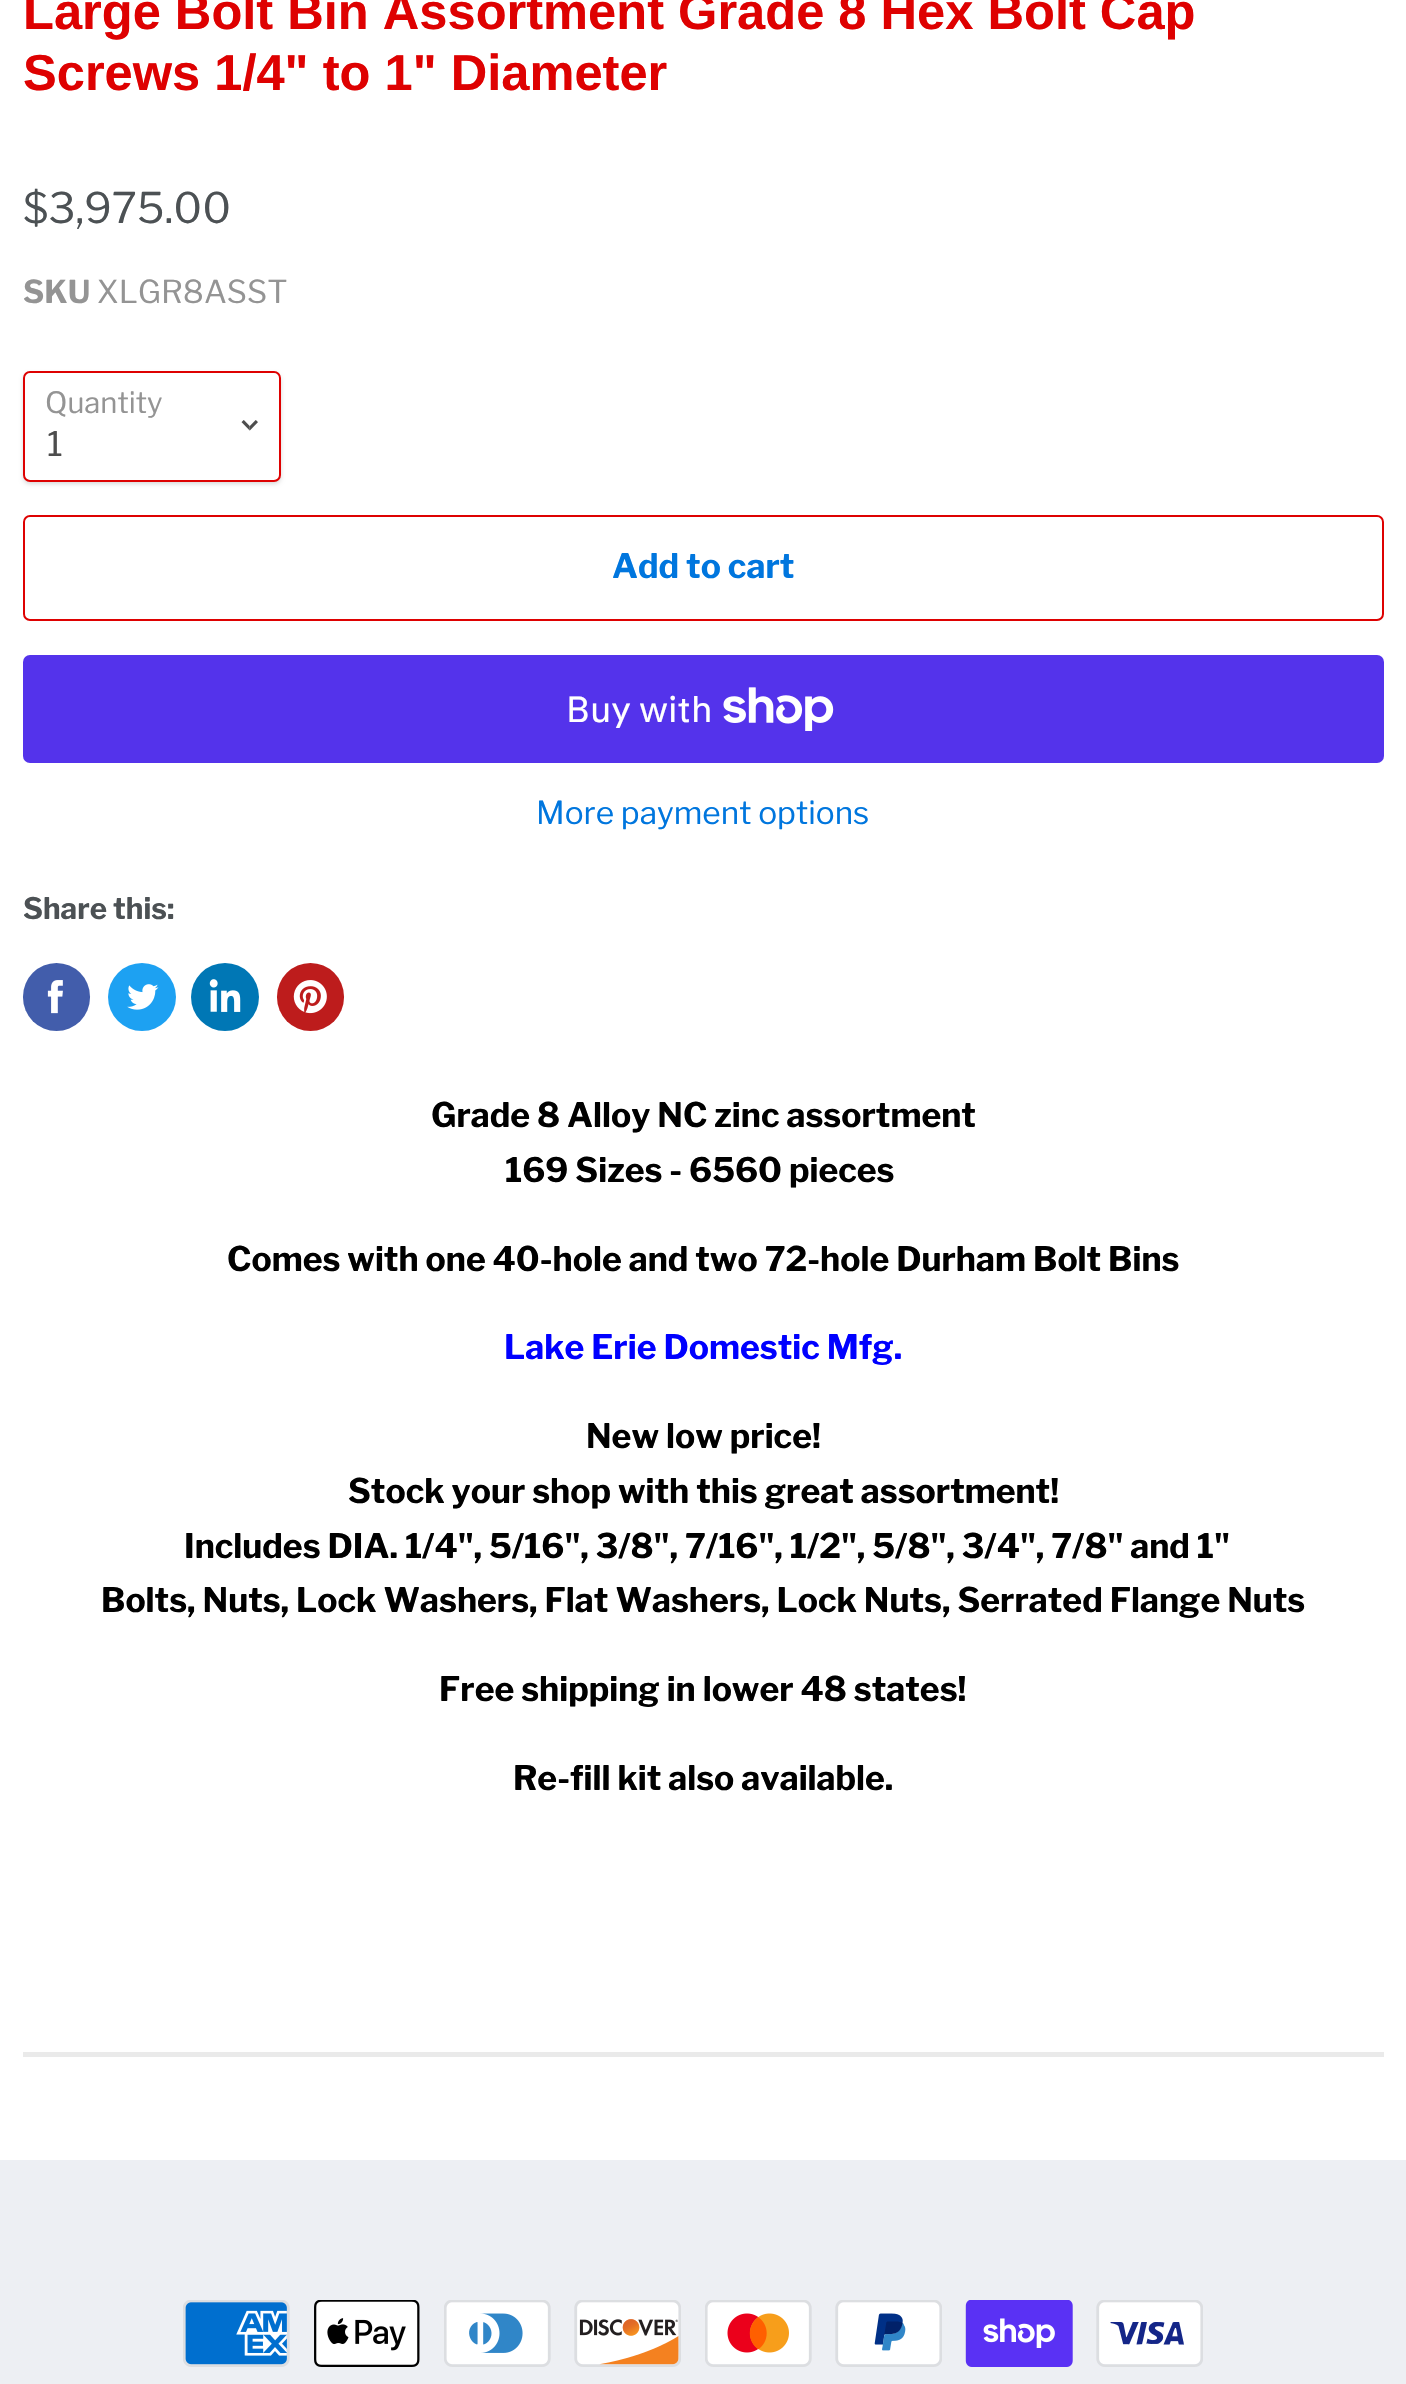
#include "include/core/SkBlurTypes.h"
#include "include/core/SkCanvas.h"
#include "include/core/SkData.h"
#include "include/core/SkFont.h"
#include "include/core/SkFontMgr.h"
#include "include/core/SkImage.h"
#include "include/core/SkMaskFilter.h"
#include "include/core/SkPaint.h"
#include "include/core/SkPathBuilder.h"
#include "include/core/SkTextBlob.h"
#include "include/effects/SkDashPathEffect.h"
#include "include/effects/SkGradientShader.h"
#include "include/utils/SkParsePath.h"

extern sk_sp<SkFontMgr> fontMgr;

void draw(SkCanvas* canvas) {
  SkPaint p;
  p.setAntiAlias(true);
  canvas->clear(SK_ColorWHITE);
  p.setColor(SkColorSetARGB(38, 0, 0, 0));
  p.setMaskFilter(SkMaskFilter::MakeBlur(kNormal_SkBlurStyle, 2));
  canvas->drawRoundRect(SkRect::MakeLTRB(23, 374, 281, 484), 7, 7, p);
  p.setMaskFilter(nullptr);
  p.setColor(SK_ColorWHITE);
  canvas->drawRoundRect(SkRect::MakeLTRB(24, 372, 280, 481), 6, 6, p);
  p.setStyle(SkPaint::kStroke_Style);
  p.setStrokeWidth(2);
  p.setColor(SkColorSetRGB(222, 1, 1));
  canvas->drawRoundRect(SkRect::MakeLTRB(24, 372, 280, 481), 6, 6, p);
  canvas->drawImageRect(SkImages::DeferredFromEncodedData(SkData::MakeFromFileName("images/1.png")), SkRect::MakeLTRB(241, 420, 258, 431), SkSamplingOptions());
  canvas->drawRoundRect(SkRect::MakeLTRB(24, 516, 1383, 620), 6, 6, p);
  p.setStyle(SkPaint::kFill_Style);
  p.setColor(SkColorSetRGB(84, 51, 235));
  canvas->drawRoundRect(SkRect::MakeLTRB(23, 655, 1384, 763), 7, 7, p);
  canvas->drawImageRect(SkImages::DeferredFromEncodedData(SkData::MakeFromFileName("images/2.png")), SkRect::MakeLTRB(723, 687, 834, 731), SkSamplingOptions());
  p.setColor(SkColorSetRGB(66, 93, 171));
  canvas->drawRoundRect(SkRect::MakeLTRB(23, 963, 90, 1031), 33.5f, 33.5f, p);
  canvas->drawImageRect(SkImages::DeferredFromEncodedData(SkData::MakeFromFileName("images/3.png")), SkRect::MakeLTRB(47, 980, 63, 1014), SkSamplingOptions());
  p.setColor(SkColorSetRGB(29, 161, 242));
  canvas->drawCircle(142, 997, 34, p);
  canvas->drawImageRect(SkImages::DeferredFromEncodedData(SkData::MakeFromFileName("images/4.png")), SkRect::MakeLTRB(127, 984, 159, 1010), SkSamplingOptions());
  p.setColor(SkColorSetRGB(0, 119, 181));
  canvas->drawCircle(225, 997, 34, p);
  canvas->drawImageRect(SkImages::DeferredFromEncodedData(SkData::MakeFromFileName("images/5.png")), SkRect::MakeLTRB(209, 979, 241, 1012), SkSamplingOptions());
  p.setColor(SkColorSetRGB(189, 28, 28));
  canvas->drawRoundRect(SkRect::MakeLTRB(277, 963, 344, 1031), 33.5f, 33.5f, p);
  canvas->drawImageRect(SkImages::DeferredFromEncodedData(SkData::MakeFromFileName("images/6.png")), SkRect::MakeLTRB(293, 980, 327, 1014), SkSamplingOptions());
  p.setColor(SkColorSetARGB(41, 127, 127, 127));
  canvas->drawRect(SkRect::MakeLTRB(23, 2052, 1384, 2057), p);
  p.setColor(SkColorSetRGB(237, 239, 243));
  canvas->drawRect(SkRect::MakeLTRB(0, 2160, 1406, 2384), p);
  canvas->drawImageRect(SkImages::DeferredFromEncodedData(SkData::MakeFromFileName("images/7.png")), SkRect::MakeLTRB(183, 2300, 290, 2367), SkSamplingOptions());
  canvas->drawImageRect(SkImages::DeferredFromEncodedData(SkData::MakeFromFileName("images/8.png")), SkRect::MakeLTRB(314, 2300, 420, 2367), SkSamplingOptions());
  canvas->drawImageRect(SkImages::DeferredFromEncodedData(SkData::MakeFromFileName("images/9.png")), SkRect::MakeLTRB(444, 2300, 551, 2367), SkSamplingOptions());
  canvas->drawImageRect(SkImages::DeferredFromEncodedData(SkData::MakeFromFileName("images/10.png")), SkRect::MakeLTRB(574, 2300, 681, 2367), SkSamplingOptions());
  canvas->drawImageRect(SkImages::DeferredFromEncodedData(SkData::MakeFromFileName("images/11.png")), SkRect::MakeLTRB(705, 2300, 812, 2367), SkSamplingOptions());
  canvas->drawImageRect(SkImages::DeferredFromEncodedData(SkData::MakeFromFileName("images/12.png")), SkRect::MakeLTRB(835, 2300, 942, 2367), SkSamplingOptions());
  canvas->drawImageRect(SkImages::DeferredFromEncodedData(SkData::MakeFromFileName("images/13.png")), SkRect::MakeLTRB(965, 2300, 1073, 2367), SkSamplingOptions());
  canvas->drawImageRect(SkImages::DeferredFromEncodedData(SkData::MakeFromFileName("images/14.png")), SkRect::MakeLTRB(1096, 2300, 1203, 2367), SkSamplingOptions());
  SkFont font1(fontMgr->matchFamilyStyle("Arimo", SkFontStyle::Bold()), 50.6f);
  font1.setSubpixel(true);
  p.setColor(SkColorSetRGB(222, 1, 1));
  canvas->drawString("Large Bolt Bin Assortment Grade 8 Hex Bolt Cap", 23, 29, font1, p);
  canvas->drawString("Screws 1/4\" to 1\" Diameter", 23, 90, font1, p);
  SkFont font2(fontMgr->matchFamilyStyle("Libre Franklin", SkFontStyle::Normal()), 42);
  font2.setSubpixel(true);
  p.setColor(SkColorSetRGB(76, 81, 84));
  canvas->drawString("$3,975.00", 23, 223, font2, p);
  SkFont font3(fontMgr->matchFamilyStyle("Libre Franklin", SkFontStyle::Bold()), 31.5f);
  font3.setSubpixel(true);
  p.setColor(SkColorSetRGB(148, 148, 148));
  canvas->drawString("SKU", 23, 303, font3, p);
  SkFont font4(fontMgr->matchFamilyStyle("Libre Franklin", SkFontStyle::Normal()), 31.5f);
  font4.setSubpixel(true);
  canvas->drawString("XLGR8ASST", 97, 303, font4, p);
  SkFont font5(fontMgr->matchFamilyStyle("Libre Franklin", SkFontStyle::Normal()), 29.25f);
  font5.setSubpixel(true);
  canvas->drawString("Quantity", 45, 413, font5, p);
  SkFont font6(fontMgr->matchFamilyStyle("Libre Franklin", SkFontStyle::Normal()), 33.75f);
  font6.setSubpixel(true);
  p.setColor(SkColorSetRGB(77, 77, 77));
  canvas->drawString("1", 47, 456, font6, p);
  SkFont font7(fontMgr->matchFamilyStyle("Libre Franklin", SkFontStyle::Bold()), 33.75f);
  font7.setSubpixel(true);
  p.setColor(SkColorSetRGB(0, 118, 222));
  canvas->drawString("Add to cart", 612, 578, font7, p);
  SkFont font8(fontMgr->matchFamilyStyle("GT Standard", SkFontStyle::Normal()), 36);
  font8.setSubpixel(true);
  p.setColor(SK_ColorWHITE);
  canvas->drawString("Buy with", 566, 722, font8, p);
  SkFont font9(fontMgr->matchFamilyStyle("Libre Franklin", SkFontStyle::Normal()), 31.6f);
  font9.setSubpixel(true);
  p.setColor(SkColorSetRGB(0, 118, 222));
  canvas->drawString("More payment options", 536, 824, font9, p);
  SkFont font10(fontMgr->matchFamilyStyle("Libre Franklin", SkFontStyle::Bold()), 29.5f);
  font10.setSubpixel(true);
  p.setColor(SkColorSetRGB(76, 81, 84));
  canvas->drawString("Share this:", 23, 919, font10, p);
  p.setColor(SK_ColorBLACK);
  canvas->drawString("Grade 8 Alloy NC zinc assortment", 431, 1127, font7, p);
  canvas->drawString("169 Sizes - 6560 pieces", 505, 1182, font7, p);
  canvas->drawString("Comes with one 40-hole and two 72-hole Durham Bolt Bins", 227, 1271, font7, p);
  p.setColor(SkColorSetRGB(0, 0, 255));
  canvas->drawString("Lake Erie Domestic Mfg.", 504, 1359, font7, p);
  p.setColor(SK_ColorBLACK);
  canvas->drawString("New low price!", 586, 1448, font7, p);
  canvas->drawString("Stock your shop with this great assortment!", 348, 1503, font7, p);
  canvas->drawString("Includes DIA. 1/4\", 5/16\", 3/8\", 7/16\", 1/2\", 5/8\", 3/4\", 7/8\" and 1\"", 184, 1558, font7, p);
  canvas->drawString("Bolts, Nuts, Lock Washers, Flat Washers, Lock Nuts, Serrated Flange Nuts", 101, 1612, font7, p);
  canvas->drawString("Free shipping in lower 48 states!", 439, 1701, font7, p);
  canvas->drawString("Re-fill kit also available.", 513, 1790, font7, p);
}
